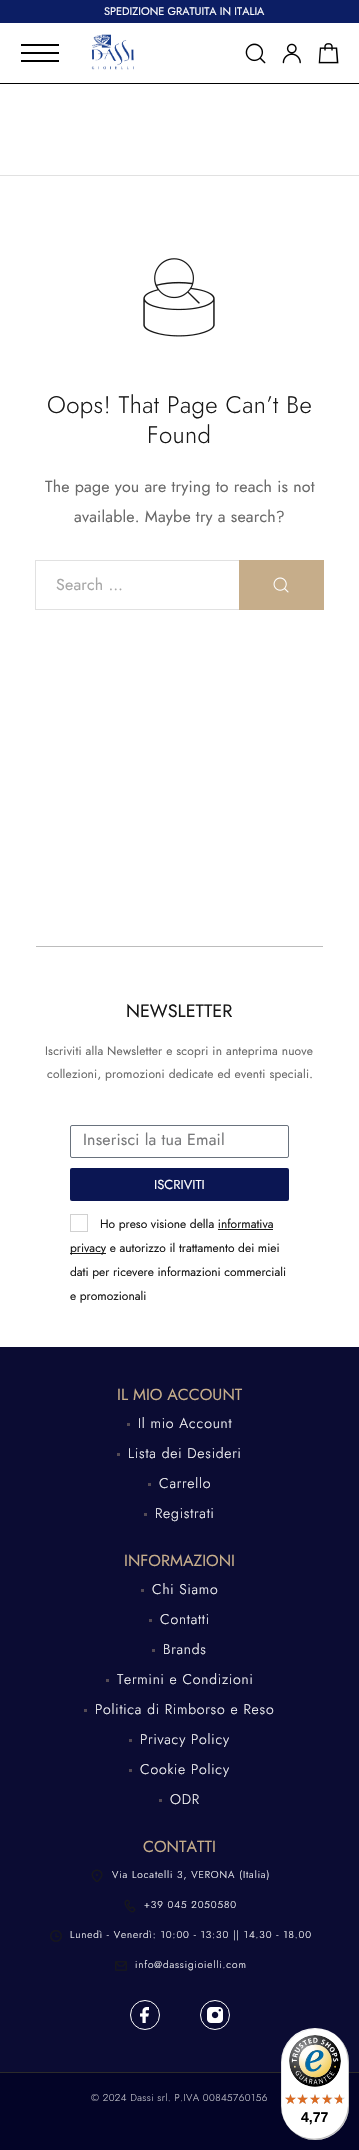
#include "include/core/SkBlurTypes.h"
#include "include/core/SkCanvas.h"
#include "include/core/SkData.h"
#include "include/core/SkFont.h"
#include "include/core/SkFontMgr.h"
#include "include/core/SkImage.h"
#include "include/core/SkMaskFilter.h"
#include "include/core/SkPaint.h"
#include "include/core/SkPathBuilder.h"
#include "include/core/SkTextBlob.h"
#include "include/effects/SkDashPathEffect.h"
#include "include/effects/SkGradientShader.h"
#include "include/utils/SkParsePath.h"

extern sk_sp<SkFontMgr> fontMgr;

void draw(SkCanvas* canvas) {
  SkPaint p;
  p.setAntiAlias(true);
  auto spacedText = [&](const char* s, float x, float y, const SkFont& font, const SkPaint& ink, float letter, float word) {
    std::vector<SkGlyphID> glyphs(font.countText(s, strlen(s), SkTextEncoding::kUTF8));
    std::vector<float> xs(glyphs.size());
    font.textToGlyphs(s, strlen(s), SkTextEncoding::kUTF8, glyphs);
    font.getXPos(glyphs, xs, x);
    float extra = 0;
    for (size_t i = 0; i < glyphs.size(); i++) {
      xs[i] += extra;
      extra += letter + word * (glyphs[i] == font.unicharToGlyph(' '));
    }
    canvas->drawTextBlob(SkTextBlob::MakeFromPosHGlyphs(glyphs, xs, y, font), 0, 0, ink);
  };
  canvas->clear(SK_ColorWHITE);
  p.setColor(SkColorSetRGB(12, 30, 100));
  canvas->drawRect(SkRect::MakeLTRB(0, 0, 359, 23), p);
  p.setColor(SK_ColorBLACK);
  canvas->drawRect(SkRect::MakeLTRB(0, 83, 359, 84), p);
  canvas->drawPath(SkPathBuilder().moveTo(59, 60).lineTo(59, 62).lineTo(21, 62).lineTo(21, 60).close().moveTo(59, 52).lineTo(59, 54).lineTo(21, 54).lineTo(21, 52).close().moveTo(59, 44).lineTo(59, 46).lineTo(21, 46).lineTo(21, 44).close().detach(), p);
  canvas->drawImageRect(SkImages::DeferredFromEncodedData(SkData::MakeFromFileName("images/1.png")), SkRect::MakeLTRB(91, 34, 134, 70), SkSamplingOptions());
  canvas->drawImageRect(SkImages::DeferredFromEncodedData(SkData::MakeFromFileName("images/2.png")), SkRect::MakeLTRB(245, 43, 266, 64), SkSamplingOptions());
  canvas->drawImageRect(SkImages::DeferredFromEncodedData(SkData::MakeFromFileName("images/3.png")), SkRect::MakeLTRB(282, 43, 301, 64), SkSamplingOptions());
  canvas->drawImageRect(SkImages::DeferredFromEncodedData(SkData::MakeFromFileName("images/4.png")), SkRect::MakeLTRB(318, 43, 339, 64), SkSamplingOptions());
  p.setColor(SkColorSetRGB(225, 225, 225));
  canvas->drawRect(SkRect::MakeLTRB(0, 175, 359, 176), p);
  canvas->drawImageRect(SkImages::DeferredFromEncodedData(SkData::MakeFromFileName("images/5.png")), SkRect::MakeLTRB(143, 258, 215, 337), SkSamplingOptions());
  p.setStyle(SkPaint::kStroke_Style);
  p.setStrokeWidth(1);
  canvas->drawRect(SkRect::MakeLTRB(35.5f, 560.5f, 239.5f, 609.5f), p);
  p.setStyle(SkPaint::kFill_Style);
  p.setColor(SkColorSetRGB(198, 173, 138));
  canvas->drawRect(SkRect::MakeLTRB(239, 560, 324, 610), p);
  canvas->drawImageRect(SkImages::DeferredFromEncodedData(SkData::MakeFromFileName("images/6.png")), SkRect::MakeLTRB(273, 577, 289, 593), SkSamplingOptions());
  p.setColor(SkColorSetRGB(188, 188, 188));
  canvas->drawRect(SkRect::MakeLTRB(36, 946, 323, 947), p);
  p.setStyle(SkPaint::kStroke_Style);
  p.setColor(SkColorSetRGB(105, 114, 125));
  canvas->drawRoundRect(SkRect::MakeLTRB(70.5f, 1125.5f, 288.5f, 1157.5f), 1.5f, 1.5f, p);
  p.setStyle(SkPaint::kFill_Style);
  p.setColor(SkColorSetRGB(11, 22, 83));
  canvas->drawRoundRect(SkRect::MakeLTRB(70, 1168, 289, 1201), 2, 2, p);
  p.setStyle(SkPaint::kStroke_Style);
  p.setColor(SkColorSetRGB(209, 209, 209));
  canvas->drawRect(SkRect::MakeLTRB(70.5f, 1214.5f, 87.5f, 1231.5f), p);
  p.setStyle(SkPaint::kFill_Style);
  p.setColor(SkColorSetRGB(24, 24, 24));
  canvas->drawRect(SkRect::MakeLTRB(218, 1229, 273, 1230), p);
  canvas->drawRect(SkRect::MakeLTRB(70, 1253, 106, 1254), p);
  p.setColor(SkColorSetRGB(11, 12, 51));
  canvas->drawRect(SkRect::MakeLTRB(0, 1347, 359, 2072), p);
  p.setColor(SkColorSetRGB(84, 75, 85));
  canvas->drawRect(SkRect::MakeLTRB(127, 1423, 130, 1426), p);
  canvas->drawRect(SkRect::MakeLTRB(117, 1453, 120, 1456), p);
  canvas->drawRect(SkRect::MakeLTRB(148, 1483, 151, 1486), p);
  canvas->drawRect(SkRect::MakeLTRB(144, 1513, 147, 1516), p);
  canvas->drawRect(SkRect::MakeLTRB(141, 1589, 144, 1592), p);
  canvas->drawRect(SkRect::MakeLTRB(149, 1619, 152, 1622), p);
  canvas->drawRect(SkRect::MakeLTRB(152, 1649, 155, 1652), p);
  canvas->drawRect(SkRect::MakeLTRB(106, 1679, 109, 1682), p);
  canvas->drawRect(SkRect::MakeLTRB(84, 1709, 87, 1712), p);
  canvas->drawRect(SkRect::MakeLTRB(129, 1739, 132, 1742), p);
  canvas->drawRect(SkRect::MakeLTRB(129, 1769, 132, 1772), p);
  canvas->drawRect(SkRect::MakeLTRB(159, 1799, 162, 1802), p);
  canvas->drawImageRect(SkImages::DeferredFromEncodedData(SkData::MakeFromFileName("images/7.png")), SkRect::MakeLTRB(91, 1869, 103, 1882), SkSamplingOptions());
  canvas->drawImageRect(SkImages::DeferredFromEncodedData(SkData::MakeFromFileName("images/8.png")), SkRect::MakeLTRB(124, 1899, 136, 1913), SkSamplingOptions());
  canvas->drawImageRect(SkImages::DeferredFromEncodedData(SkData::MakeFromFileName("images/9.png")), SkRect::MakeLTRB(50, 1930, 62, 1942), SkSamplingOptions());
  canvas->drawImageRect(SkImages::DeferredFromEncodedData(SkData::MakeFromFileName("images/10.png")), SkRect::MakeLTRB(115, 1961, 127, 1971), SkSamplingOptions());
  canvas->drawImageRect(SkImages::DeferredFromEncodedData(SkData::MakeFromFileName("images/11.png")), SkRect::MakeLTRB(140, 2007, 149, 2023), SkSamplingOptions());
  p.setStyle(SkPaint::kStroke_Style);
  p.setColor(SK_ColorWHITE);
  canvas->drawCircle(145, 2015, 14.5f, p);
  canvas->drawImageRect(SkImages::DeferredFromEncodedData(SkData::MakeFromFileName("images/12.png")), SkRect::MakeLTRB(207, 2007, 223, 2023), SkSamplingOptions());
  canvas->drawCircle(215, 2015, 14.5f, p);
  p.setStyle(SkPaint::kFill_Style);
  p.setColor(SkColorSetRGB(3, 4, 39));
  canvas->drawRect(SkRect::MakeLTRB(0, 2073, 359, 2150), p);
  p.setColor(SkColorSetRGB(43, 43, 43));
  canvas->drawRect(SkRect::MakeLTRB(0, 2072, 359, 2073), p);
  p.setColor(SK_ColorWHITE);
  canvas->drawRoundRect(SkRect::MakeLTRB(281, 2028, 349, 2140), 34, 34, p);
  p.setColor(SkColorSetARGB(26, 0, 0, 0));
  canvas->drawPath(SkPathBuilder().moveTo(316, 2029).cubicTo(324, 2029, 332, 2032, 338, 2037).cubicTo(321, 2022, 293, 2028, 284, 2049).cubicTo(279, 2059, 281, 2073, 281, 2084).cubicTo(281, 2099, 278, 2116, 290, 2129).cubicTo(285, 2123, 282, 2115, 282, 2107).lineTo(282, 2063).cubicTo(282, 2044, 297, 2029, 316, 2029).close().detach(), p);
  p.setColor(SkColorSetARGB(51, 0, 0, 0));
  canvas->drawPath(SkPathBuilder().moveTo(292, 2131).cubicTo(309, 2146, 337, 2140, 346, 2119).cubicTo(351, 2109, 349, 2095, 349, 2084).cubicTo(349, 2069, 352, 2052, 340, 2039).cubicTo(350, 2052, 348, 2068, 348, 2083).cubicTo(348, 2094, 350, 2108, 345, 2118).cubicTo(337, 2139, 310, 2145, 292, 2131).close().detach(), p);
  p.setColor(SkColorSetARGB(51, 50, 50, 50));
  canvas->drawPath(SkPathBuilder().moveTo(288, 2127).cubicTo(295, 2135, 304, 2140, 315, 2140).cubicTo(334, 2140, 349, 2125, 349, 2106).lineTo(349, 2062).cubicTo(349, 2051, 344, 2042, 336, 2035).cubicTo(343, 2042, 348, 2051, 348, 2061).lineTo(348, 2105).cubicTo(348, 2124, 333, 2139, 314, 2139).cubicTo(304, 2139, 295, 2134, 288, 2127).close().detach(), p);
  p.setColor(SkColorSetARGB(77, 255, 255, 255));
  canvas->drawPath(SkPathBuilder().moveTo(315, 2028).cubicTo(333, 2028, 348, 2043, 348, 2062).lineTo(348, 2106).cubicTo(348, 2124, 333, 2140, 314, 2140).lineTo(315, 2140).cubicTo(334, 2140, 349, 2125, 349, 2106).lineTo(349, 2062).cubicTo(349, 2043, 334, 2028, 315, 2028).close().detach(), p);
  canvas->drawImageRect(SkImages::DeferredFromEncodedData(SkData::MakeFromFileName("images/13.png")), SkRect::MakeLTRB(289, 2035, 341, 2087), SkSamplingOptions());
  canvas->drawImageRect(SkImages::DeferredFromEncodedData(SkData::MakeFromFileName("images/14.png")), SkRect::MakeLTRB(285, 2094, 296, 2104), SkSamplingOptions());
  canvas->drawImageRect(SkImages::DeferredFromEncodedData(SkData::MakeFromFileName("images/15.png")), SkRect::MakeLTRB(298, 2094, 308, 2104), SkSamplingOptions());
  canvas->drawImageRect(SkImages::DeferredFromEncodedData(SkData::MakeFromFileName("images/16.png")), SkRect::MakeLTRB(310, 2094, 320, 2104), SkSamplingOptions());
  canvas->drawImageRect(SkImages::DeferredFromEncodedData(SkData::MakeFromFileName("images/17.png")), SkRect::MakeLTRB(322, 2094, 333, 2104), SkSamplingOptions());
  canvas->drawImageRect(SkImages::DeferredFromEncodedData(SkData::MakeFromFileName("images/17.png")), SkRect::MakeLTRB(334, 2094, 345, 2104), SkSamplingOptions());
  canvas->drawImageRect(SkImages::DeferredFromEncodedData(SkData::MakeFromFileName("images/18.png")), SkRect::MakeLTRB(285, 2094, 296, 2104), SkSamplingOptions());
  canvas->drawImageRect(SkImages::DeferredFromEncodedData(SkData::MakeFromFileName("images/19.png")), SkRect::MakeLTRB(297, 2094, 308, 2104), SkSamplingOptions());
  canvas->drawImageRect(SkImages::DeferredFromEncodedData(SkData::MakeFromFileName("images/20.png")), SkRect::MakeLTRB(310, 2094, 320, 2104), SkSamplingOptions());
  canvas->drawImageRect(SkImages::DeferredFromEncodedData(SkData::MakeFromFileName("images/21.png")), SkRect::MakeLTRB(322, 2094, 332, 2104), SkSamplingOptions());
  canvas->drawImageRect(SkImages::DeferredFromEncodedData(SkData::MakeFromFileName("images/22.png")), SkRect::MakeLTRB(334, 2094, 342, 2104), SkSamplingOptions());
  SkFont font1(fontMgr->matchFamilyStyle("Jost", SkFontStyle::Normal()), 11);
  font1.setSubpixel(true);
  p.setColor(SkColorSetRGB(254, 254, 254));
  canvas->drawString("SPEDIZIONE GRATUITA IN ITALIA", 104, 15, font1, p);
  SkFont font2(fontMgr->matchFamilyStyle("Jost", SkFontStyle(300, SkFontStyle::kNormal_Width, SkFontStyle::kUpright_Slant)), 24);
  font2.setSubpixel(true);
  p.setColor(SkColorSetRGB(24, 24, 24));
  spacedText("Oops! That Page Can’t Be", 47, 413, font2, p, 0.4f, 0);
  spacedText("Found", 147, 443, font2, p, 0.4f, 0);
  SkFont font3(fontMgr->matchFamilyStyle("Jost", SkFontStyle::Normal()), 16);
  font3.setSubpixel(true);
  p.setColor(SkColorSetRGB(106, 106, 106));
  spacedText("The page you are trying to reach is not", 45, 492, font3, p, 0.2f, 0);
  spacedText("available. Maybe try a search?", 74, 522, font3, p, 0.2f, 0);
  p.setColor(SkColorSetRGB(167, 167, 167));
  spacedText("Search …", 56, 590, font3, p, 0.2f, 0);
  SkFont font4(fontMgr->matchFamilyStyle("Jost", SkFontStyle::Normal()), 18);
  font4.setSubpixel(true);
  p.setColor(SkColorSetRGB(24, 24, 24));
  canvas->drawString("NEWSLETTER", 126, 1017, font4, p);
  SkFont font5(fontMgr->matchFamilyStyle("Jost", SkFontStyle::Normal()), 12);
  font5.setSubpixel(true);
  p.setColor(SkColorSetRGB(106, 106, 106));
  spacedText("Iscriviti alla Newsletter e scopri in anteprima nuove", 45, 1055, font5, p, 0.18f, 0);
  spacedText("collezioni, promozioni dedicate ed eventi speciali.", 47, 1078, font5, p, 0.18f, 0);
  p.setColor(SkColorSetRGB(121, 122, 124));
  spacedText("Inserisci la tua Email", 83, 1145, font3, p, 0.2f, 0);
  SkFont font6(fontMgr->matchFamilyStyle("Jost", SkFontStyle::Normal()), 13);
  font6.setSubpixel(true);
  p.setColor(SkColorSetRGB(254, 254, 254));
  canvas->drawString("ISCRIVITI", 154, 1189, font6, p);
  p.setColor(SkColorSetRGB(24, 24, 24));
  canvas->drawString("Ho preso visione della informativa", 100, 1228, font5, p);
  canvas->drawString("privacy e autorizzo il trattamento dei miei", 70, 1252, font5, p);
  canvas->drawString("dati per ricevere informazioni commerciali", 70, 1276, font5, p);
  canvas->drawString("e promozionali", 70, 1300, font5, p);
  p.setColor(SkColorSetRGB(198, 173, 138));
  canvas->drawString("IL MIO ACCOUNT", 117, 1400, font3, p);
  SkFont font7(fontMgr->matchFamilyStyle("Jost", SkFontStyle(300, SkFontStyle::kNormal_Width, SkFontStyle::kUpright_Slant)), 14);
  font7.setSubpixel(true);
  p.setColor(SkColorSetRGB(254, 254, 254));
  spacedText("Il mio Account", 138, 1428, font7, p, 0.8f, 0);
  spacedText("Lista dei Desideri", 128, 1458, font7, p, 0.8f, 0);
  spacedText("Carrello", 159, 1488, font7, p, 0.8f, 0);
  spacedText("Registrati", 155, 1518, font7, p, 0.8f, 0);
  p.setColor(SkColorSetRGB(198, 173, 138));
  canvas->drawString("INFORMAZIONI", 124, 1566, font3, p);
  p.setColor(SkColorSetRGB(254, 254, 254));
  spacedText("Chi Siamo", 152, 1594, font7, p, 0.8f, 0);
  spacedText("Contatti", 160, 1624, font7, p, 0.8f, 0);
  spacedText("Brands", 163, 1654, font7, p, 0.8f, 0);
  spacedText("Termini e Condizioni", 117, 1684, font7, p, 0.8f, 0);
  spacedText("Politica di Rimborso e Reso", 95, 1714, font7, p, 0.8f, 0);
  spacedText("Privacy Policy", 140, 1744, font7, p, 0.8f, 0);
  spacedText("Cookie Policy", 140, 1774, font7, p, 0.8f, 0);
  spacedText("ODR", 170, 1804, font7, p, 0.8f, 0);
  p.setColor(SkColorSetRGB(198, 173, 138));
  canvas->drawString("CONTATTI", 143, 1852, font3, p);
  SkFont font8(fontMgr->matchFamilyStyle("Jost", SkFontStyle(300, SkFontStyle::kNormal_Width, SkFontStyle::kUpright_Slant)), 10);
  font8.setSubpixel(true);
  p.setColor(SkColorSetRGB(254, 254, 254));
  spacedText("Via Locatelli 3, VERONA (Italia)", 112, 1878, font8, p, 0.9f, 0);
  spacedText("+39 045 2050580", 144, 1908, font8, p, 0.9f, 0);
  spacedText("Lunedì - Venerdì: 10:00 - 13:30 || 14.30 - 18.00", 70, 1938, font8, p, 0.9f, 0);
  spacedText("info@dassigioielli.com", 135, 1968, font8, p, 0.9f, 0);
  p.setColor(SkColorSetRGB(197, 197, 205));
  spacedText("© 2024 Dassi srl. P.IVA 00845760156", 91, 2101, font8, p, 0.4f, 0);
  SkFont font9(fontMgr->matchFamilyStyle("Liberation Sans", SkFontStyle::Bold()), 14);
  font9.setSubpixel(true);
  p.setColor(SK_ColorBLACK);
  canvas->drawString("4,77", 301, 2122, font9, p);
}
